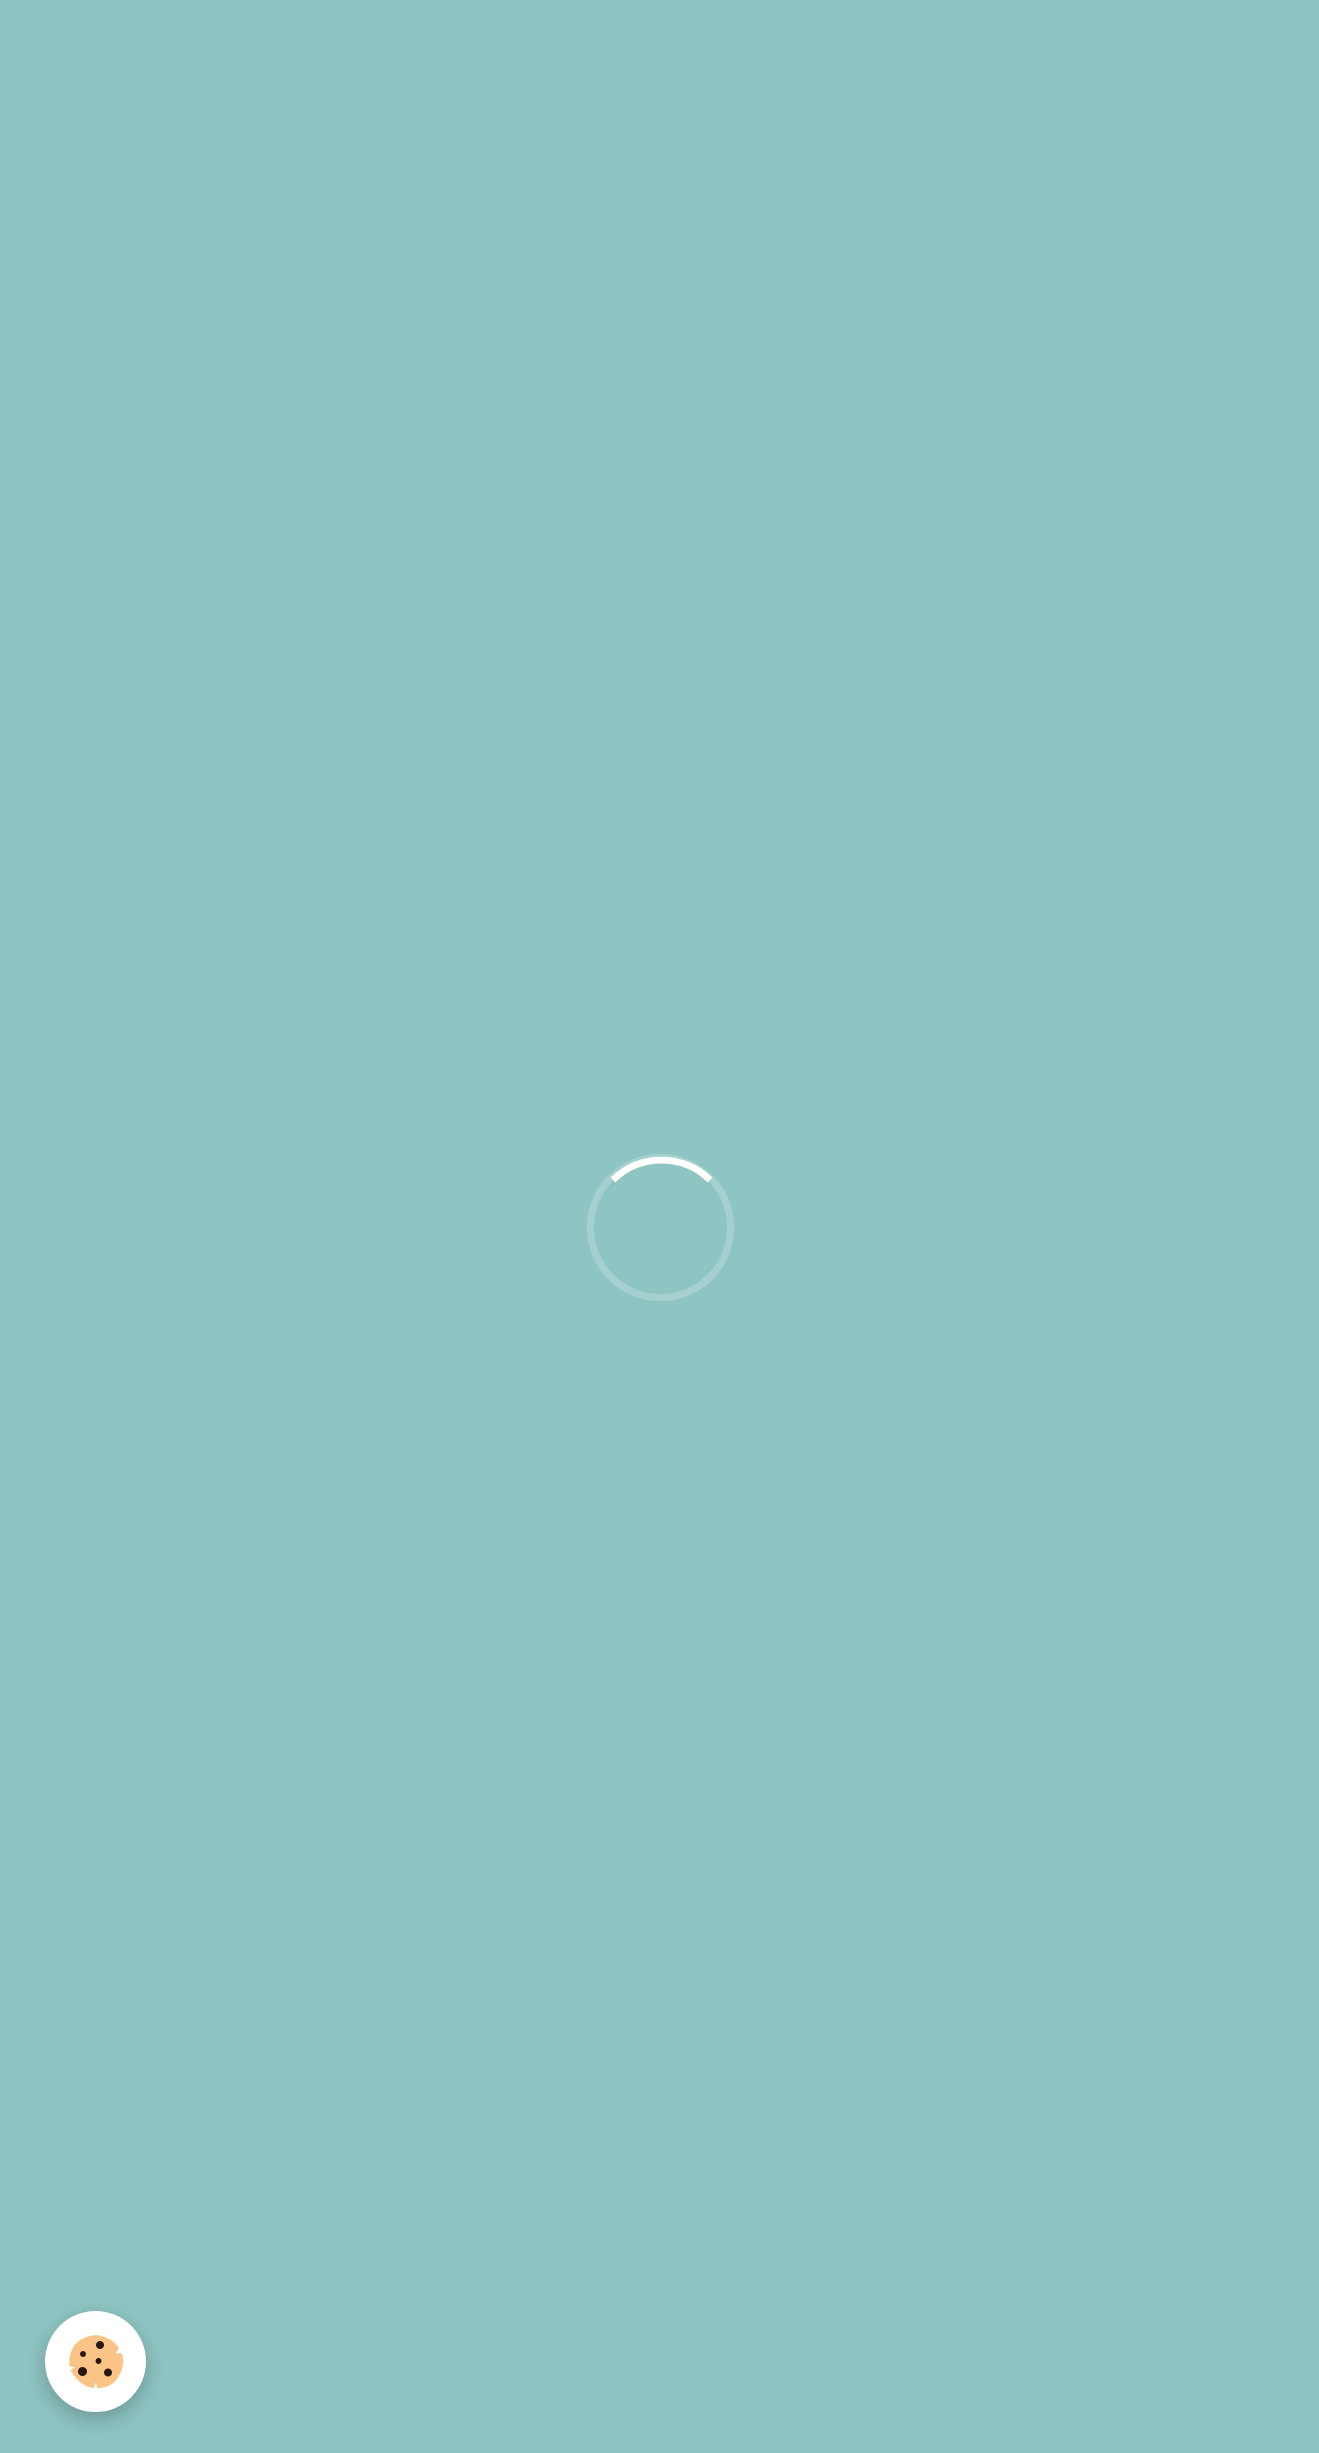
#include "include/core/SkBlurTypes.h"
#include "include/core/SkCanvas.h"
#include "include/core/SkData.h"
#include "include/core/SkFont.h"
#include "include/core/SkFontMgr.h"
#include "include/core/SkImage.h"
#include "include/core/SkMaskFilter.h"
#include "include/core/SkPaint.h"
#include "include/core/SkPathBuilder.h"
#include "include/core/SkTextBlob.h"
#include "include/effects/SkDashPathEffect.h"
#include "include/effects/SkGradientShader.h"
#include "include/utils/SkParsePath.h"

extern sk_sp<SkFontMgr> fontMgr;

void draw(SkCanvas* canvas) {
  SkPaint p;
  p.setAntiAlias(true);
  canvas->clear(SkColorSetRGB(142, 197, 195));
  p.setStyle(SkPaint::kStroke_Style);
  p.setStrokeWidth(6.8f);
  p.setColor(SK_ColorWHITE);
  canvas->drawPath(SkPathBuilder().moveTo(613, 1180).cubicTo(639.5f, 1153.5f, 683.5f, 1153.5f, 710, 1180).detach(), p);
  p.setStrokeWidth(7);
  p.setColor(SkColorSetARGB(51, 255, 255, 255));
  canvas->drawCircle(660.5f, 1227.5f, 70, p);
  p.setStyle(SkPaint::kFill_Style);
  p.setColor(SkColorSetARGB(61, 0, 0, 0));
  p.setMaskFilter(SkMaskFilter::MakeBlur(kNormal_SkBlurStyle, 11));
  canvas->drawRoundRect(SkRect::MakeLTRB(45, 2318, 146, 2419), 50.5f, 50.5f, p);
  p.setMaskFilter(nullptr);
  p.setColor(SK_ColorWHITE);
  canvas->drawCircle(95.5f, 2361.5f, 50.5f, p);
  canvas->drawImageRect(SkImages::DeferredFromEncodedData(SkData::MakeFromFileName("images/1.png")), SkRect::MakeLTRB(69, 2335, 124, 2389), SkSamplingOptions());
}
